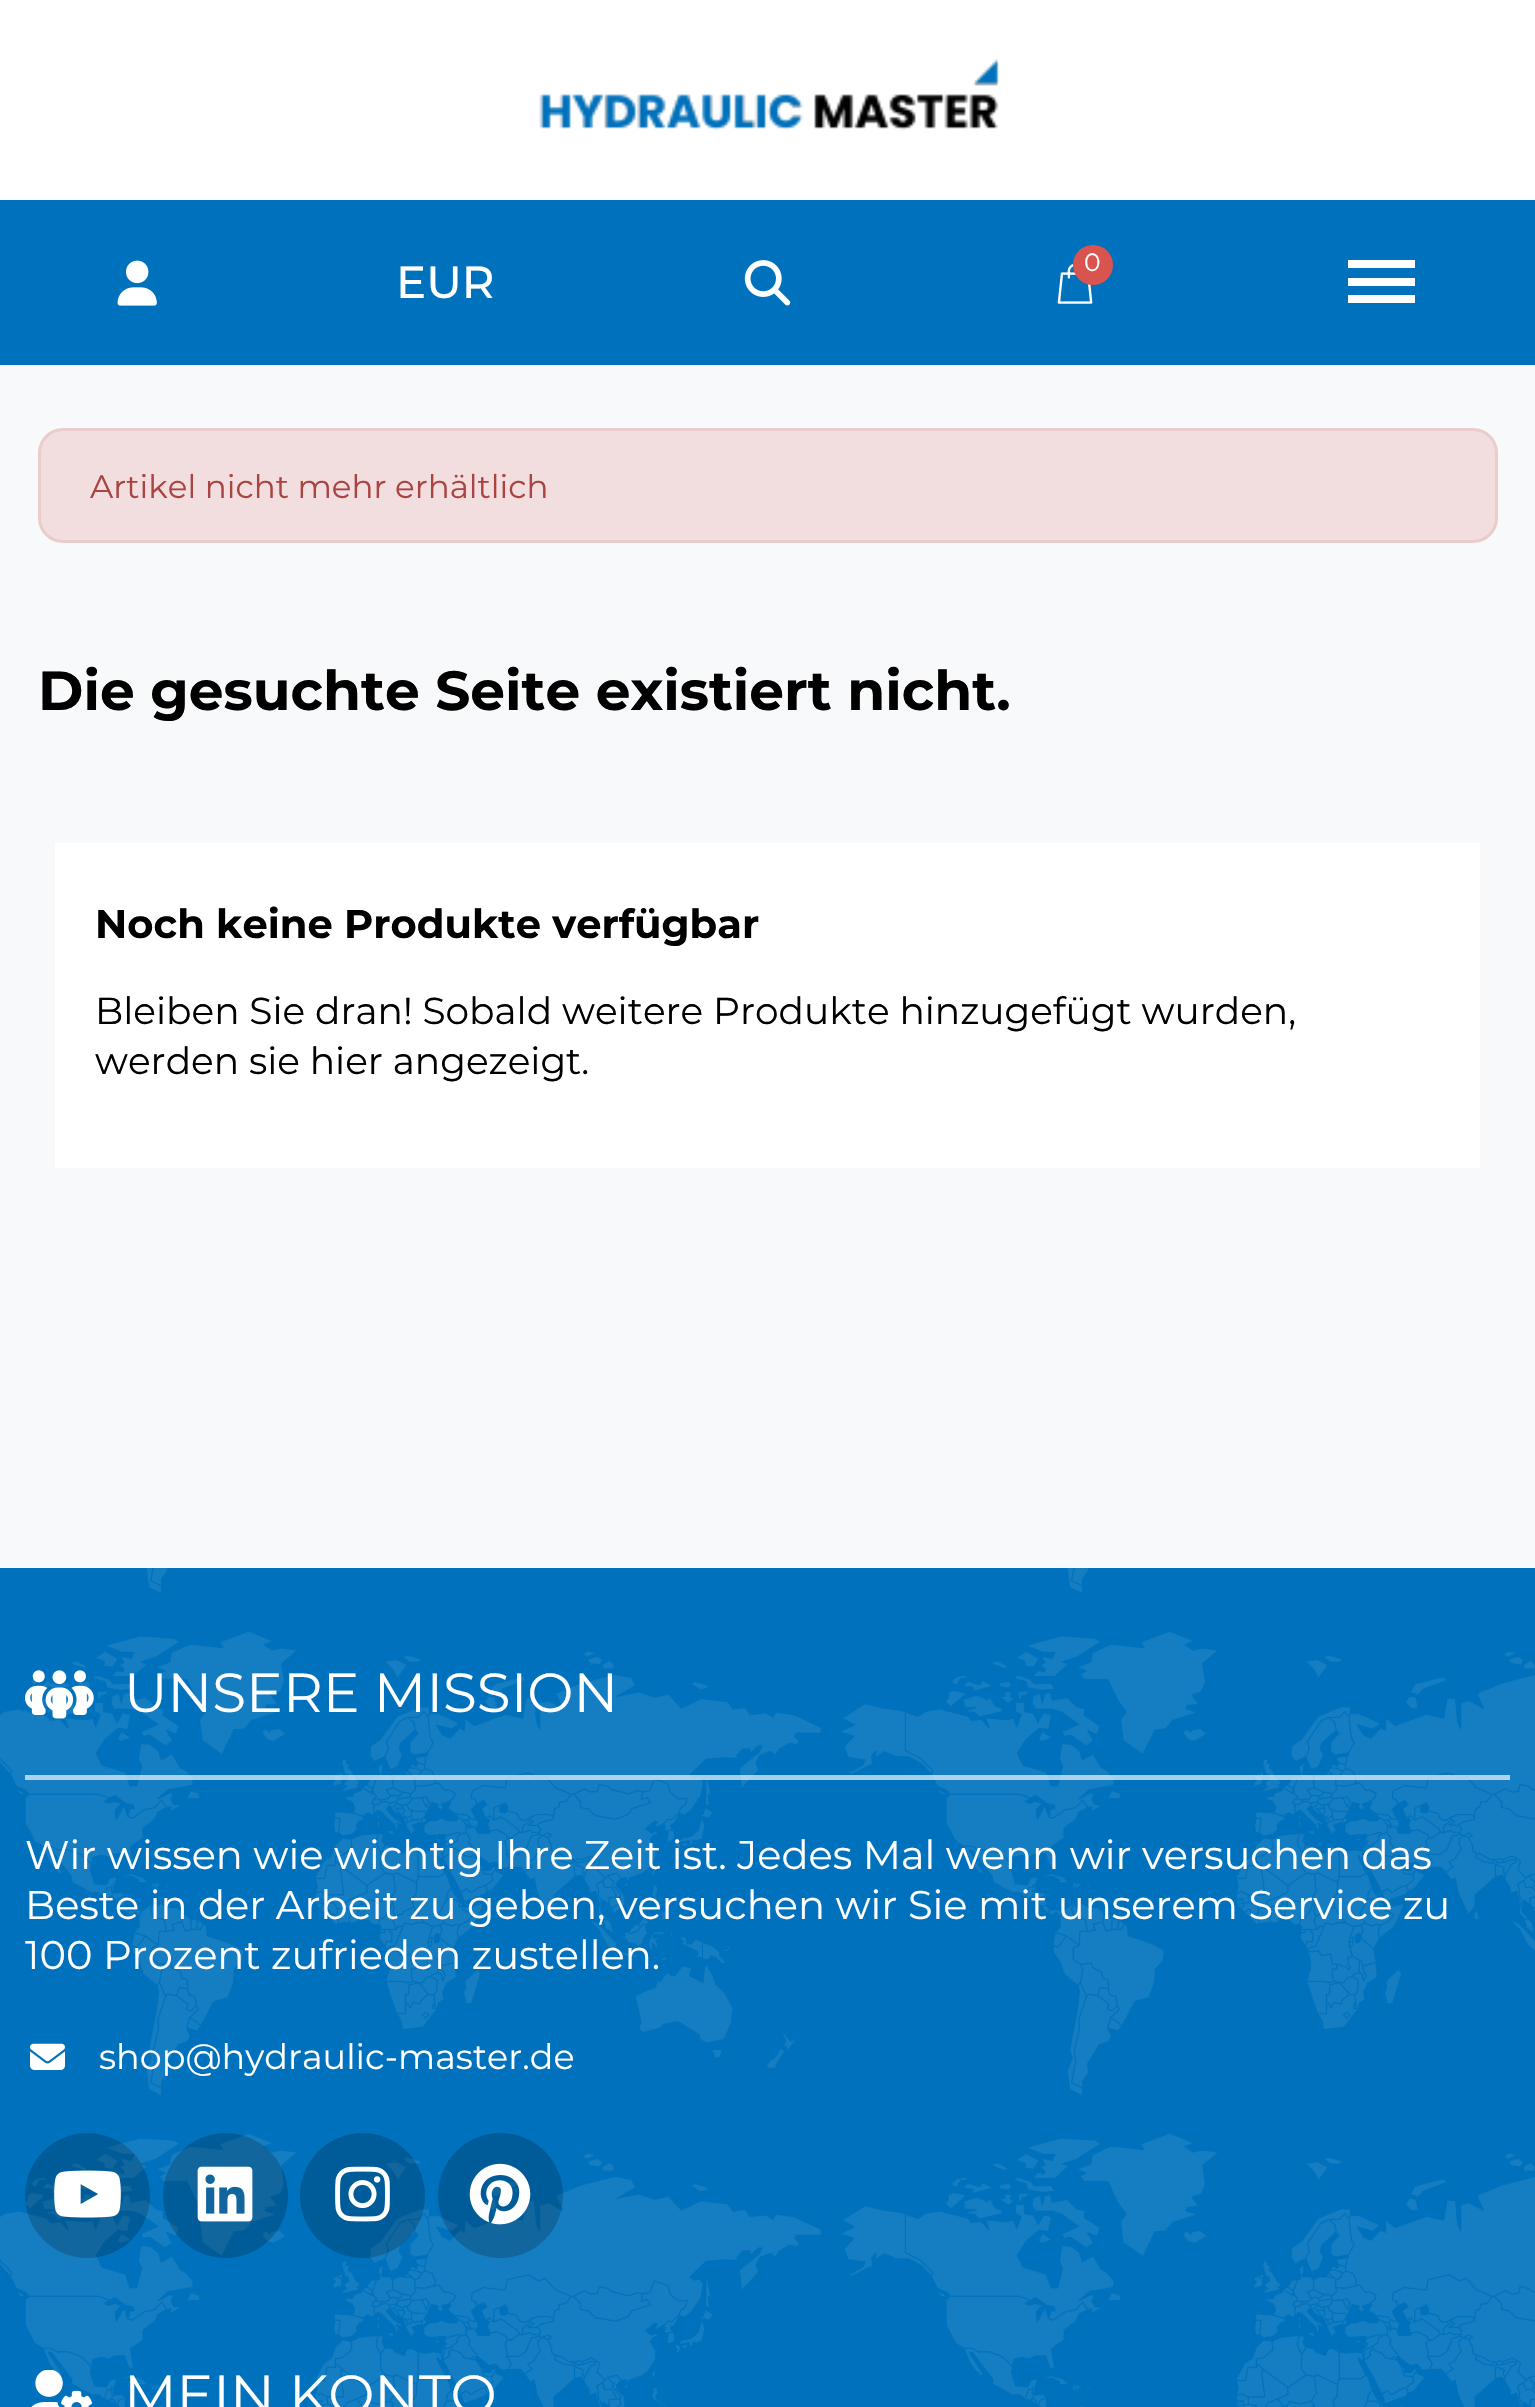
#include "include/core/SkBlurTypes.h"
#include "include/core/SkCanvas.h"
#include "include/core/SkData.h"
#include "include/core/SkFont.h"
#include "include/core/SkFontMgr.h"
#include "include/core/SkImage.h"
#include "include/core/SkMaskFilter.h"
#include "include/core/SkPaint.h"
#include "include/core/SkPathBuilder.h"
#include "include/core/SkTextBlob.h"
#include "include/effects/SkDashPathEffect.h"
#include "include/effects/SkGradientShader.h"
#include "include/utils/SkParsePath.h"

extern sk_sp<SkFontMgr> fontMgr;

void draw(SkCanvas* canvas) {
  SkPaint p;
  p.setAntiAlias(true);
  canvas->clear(SkColorSetRGB(248, 249, 250));
  p.setColor(SK_ColorWHITE);
  canvas->drawRect(SkRect::MakeLTRB(0, 0, 1535, 200), p);
  canvas->drawImageRect(SkImages::DeferredFromEncodedData(SkData::MakeFromFileName("images/1.png")), SkRect::MakeLTRB(539, 59, 999, 131), SkSamplingOptions());
  p.setColor(SkColorSetRGB(0, 113, 188));
  canvas->drawRect(SkRect::MakeLTRB(0, 200, 1535, 365), p);
  canvas->drawImageRect(SkImages::DeferredFromEncodedData(SkData::MakeFromFileName("images/2.png")), SkRect::MakeLTRB(117, 260, 157, 306), SkSamplingOptions());
  canvas->drawImageRect(SkImages::DeferredFromEncodedData(SkData::MakeFromFileName("images/3.png")), SkRect::MakeLTRB(744, 260, 791, 306), SkSamplingOptions());
  canvas->drawImageRect(SkImages::DeferredFromEncodedData(SkData::MakeFromFileName("images/4.png")), SkRect::MakeLTRB(1057, 263, 1093, 304), SkSamplingOptions());
  p.setColor(SkColorSetRGB(217, 83, 79));
  canvas->drawCircle(1093, 265, 20, p);
  p.setColor(SK_ColorWHITE);
  canvas->drawRect(SkRect::MakeLTRB(1348, 278, 1415, 286), p);
  canvas->drawRect(SkRect::MakeLTRB(1348, 260, 1415, 268), p);
  canvas->drawRect(SkRect::MakeLTRB(1348, 295, 1415, 303), p);
  p.setColor(SkColorSetRGB(242, 222, 222));
  canvas->drawRoundRect(SkRect::MakeLTRB(39.5f, 429.5f, 1496.5f, 541.5f), 23.5f, 23.5f, p);
  p.setStyle(SkPaint::kStroke_Style);
  p.setStrokeWidth(3);
  p.setColor(SkColorSetRGB(235, 204, 204));
  canvas->drawRoundRect(SkRect::MakeLTRB(39.5f, 429.5f, 1496.5f, 541.5f), 23.5f, 23.5f, p);
  p.setStyle(SkPaint::kFill_Style);
  p.setColor(SK_ColorWHITE);
  canvas->drawRect(SkRect::MakeLTRB(55, 843, 1480, 1168), p);
  p.setColor(SkColorSetRGB(0, 113, 188));
  canvas->drawRect(SkRect::MakeLTRB(0, 1568, 1535, 2407), p);
  canvas->drawImageRect(SkImages::DeferredFromEncodedData(SkData::MakeFromFileName("images/5.png")), SkRect::MakeLTRB(0, 1568, 1535, 2407), SkSamplingOptions());
  canvas->drawImageRect(SkImages::DeferredFromEncodedData(SkData::MakeFromFileName("images/6.png")), SkRect::MakeLTRB(25, 1670, 94, 1719), SkSamplingOptions());
  p.setColor(SkColorSetARGB(166, 255, 255, 255));
  canvas->drawRect(SkRect::MakeLTRB(25, 1775, 1510, 1780), p);
  canvas->drawImageRect(SkImages::DeferredFromEncodedData(SkData::MakeFromFileName("images/7.png")), SkRect::MakeLTRB(30, 2043, 65, 2070), SkSamplingOptions());
  p.setColor(SkColorSetARGB(48, 0, 0, 0));
  canvas->drawCircle(87.5f, 2195.5f, 62.5f, p);
  canvas->drawImageRect(SkImages::DeferredFromEncodedData(SkData::MakeFromFileName("images/8.png")), SkRect::MakeLTRB(54, 2170, 121, 2218), SkSamplingOptions());
  canvas->drawCircle(225.5f, 2195.5f, 62.5f, p);
  canvas->drawImageRect(SkImages::DeferredFromEncodedData(SkData::MakeFromFileName("images/9.png")), SkRect::MakeLTRB(197, 2166, 253, 2222), SkSamplingOptions());
  canvas->drawCircle(362.5f, 2195.5f, 62.5f, p);
  canvas->drawImageRect(SkImages::DeferredFromEncodedData(SkData::MakeFromFileName("images/10.png")), SkRect::MakeLTRB(335, 2166, 390, 2222), SkSamplingOptions());
  canvas->drawCircle(500.5f, 2195.5f, 62.5f, p);
  canvas->drawImageRect(SkImages::DeferredFromEncodedData(SkData::MakeFromFileName("images/11.png")), SkRect::MakeLTRB(469, 2163, 531, 2225), SkSamplingOptions());
  canvas->drawImageRect(SkImages::DeferredFromEncodedData(SkData::MakeFromFileName("images/12.png")), SkRect::MakeLTRB(31, 2370, 92, 2407), SkSamplingOptions());
  SkFont font1(fontMgr->matchFamilyStyle("Montserrat", SkFontStyle(500, SkFontStyle::kNormal_Width, SkFontStyle::kUpright_Slant)), 45);
  font1.setSubpixel(true);
  p.setColor(SK_ColorWHITE);
  canvas->drawString("EUR", 396, 298, font1, p);
  SkFont font2(fontMgr->matchFamilyStyle("Montserrat", SkFontStyle::Normal()), 25);
  font2.setSubpixel(true);
  canvas->drawString("0", 1084, 271, font2, p);
  SkFont font3(fontMgr->matchFamilyStyle("Montserrat", SkFontStyle::Normal()), 32.5f);
  font3.setSubpixel(true);
  p.setColor(SkColorSetRGB(169, 68, 66));
  canvas->drawString("Artikel nicht mehr erhältlich", 90, 498, font3, p);
  SkFont font4(fontMgr->matchFamilyStyle("Montserrat", SkFontStyle::Bold()), 55);
  font4.setSubpixel(true);
  p.setColor(SK_ColorBLACK);
  canvas->drawString("Die gesuchte Seite existiert nicht.", 38, 710, font4, p);
  SkFont font5(fontMgr->matchFamilyStyle("Montserrat", SkFontStyle::Bold()), 40);
  font5.setSubpixel(true);
  canvas->drawString("Noch keine Produkte verfügbar", 95, 938, font5, p);
  SkFont font6(fontMgr->matchFamilyStyle("Montserrat", SkFontStyle::Normal()), 37.5f);
  font6.setSubpixel(true);
  canvas->drawString("Bleiben Sie dran! Sobald weitere Produkte hinzugefügt wurden,", 95, 1024, font6, p);
  canvas->drawString("werden sie hier angezeigt.", 95, 1074, font6, p);
  SkFont font7(fontMgr->matchFamilyStyle("Montserrat", SkFontStyle::Normal()), 55);
  font7.setSubpixel(true);
  p.setColor(SK_ColorWHITE);
  canvas->drawString("UNSERE MISSION", 124, 1712, font7, p);
  SkFont font8(fontMgr->matchFamilyStyle("Montserrat", SkFontStyle::Normal()), 40);
  font8.setSubpixel(true);
  canvas->drawString("Wir wissen wie wichtig Ihre Zeit ist. Jedes Mal wenn wir versuchen das", 25, 1869, font8, p);
  canvas->drawString("Beste in der Arbeit zu geben, versuchen wir Sie mit unserem Service zu", 25, 1919, font8, p);
  canvas->drawString("100 Prozent zufrieden zustellen.", 25, 1969, font8, p);
  SkFont font9(fontMgr->matchFamilyStyle("Montserrat", SkFontStyle::Normal()), 35);
  font9.setSubpixel(true);
  canvas->drawString("shop@hydraulic-master.de", 99, 2069, font9, p);
  canvas->drawString("MEIN KONTO", 124, 2414, font7, p);
}
